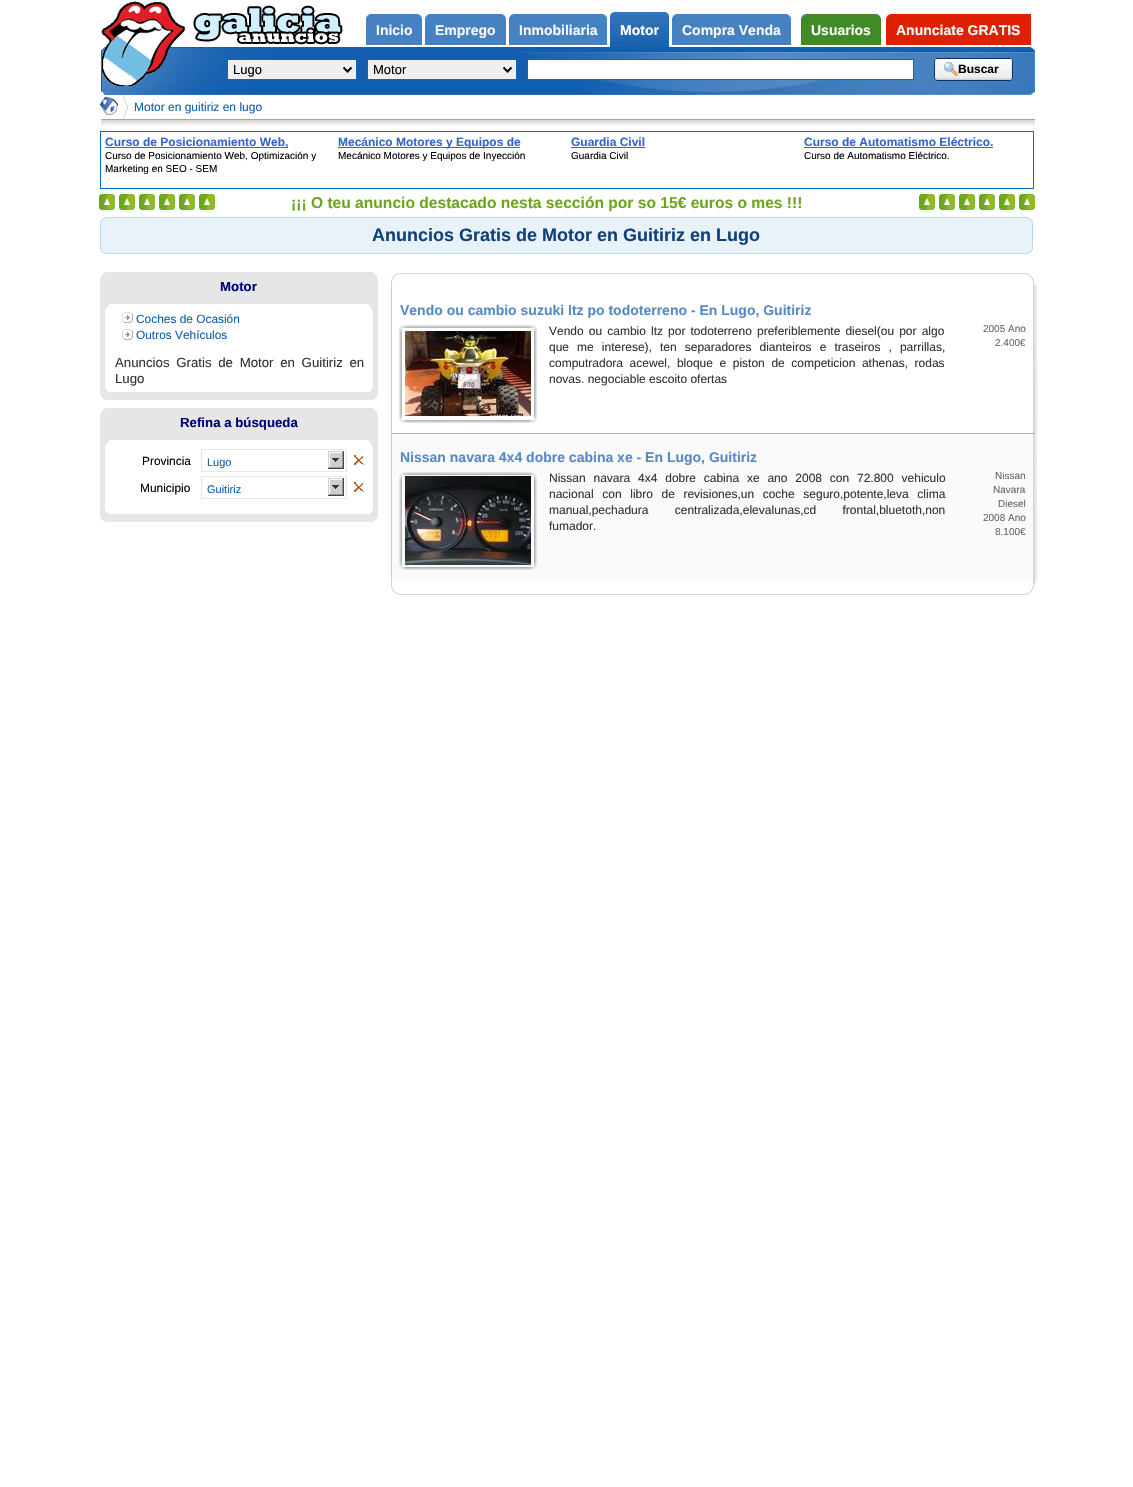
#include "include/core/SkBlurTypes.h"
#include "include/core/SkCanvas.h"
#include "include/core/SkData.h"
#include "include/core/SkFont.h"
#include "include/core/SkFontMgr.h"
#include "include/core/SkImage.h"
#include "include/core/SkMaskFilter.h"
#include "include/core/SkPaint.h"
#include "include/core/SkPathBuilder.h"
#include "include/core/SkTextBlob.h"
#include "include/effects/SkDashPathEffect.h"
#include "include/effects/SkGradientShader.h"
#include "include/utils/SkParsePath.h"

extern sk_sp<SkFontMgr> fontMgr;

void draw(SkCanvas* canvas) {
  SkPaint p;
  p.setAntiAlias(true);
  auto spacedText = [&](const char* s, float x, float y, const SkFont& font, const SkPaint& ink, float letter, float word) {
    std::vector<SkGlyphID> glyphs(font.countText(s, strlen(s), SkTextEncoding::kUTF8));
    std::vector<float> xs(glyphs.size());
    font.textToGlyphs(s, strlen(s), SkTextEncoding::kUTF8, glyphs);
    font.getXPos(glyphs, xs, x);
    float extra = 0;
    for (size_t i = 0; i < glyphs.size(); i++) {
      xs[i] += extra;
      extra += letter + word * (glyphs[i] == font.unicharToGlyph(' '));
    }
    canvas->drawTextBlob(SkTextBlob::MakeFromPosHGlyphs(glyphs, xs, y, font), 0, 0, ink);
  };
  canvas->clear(SK_ColorWHITE);
  p.setColor(SkColorSetRGB(70, 130, 193));
  canvas->drawRect(SkRect::MakeLTRB(366, 14, 422, 45), p);
  canvas->drawImageRect(SkImages::DeferredFromEncodedData(SkData::MakeFromFileName("images/1.png")), SkRect::MakeLTRB(366, 14, 370, 18), SkSamplingOptions());
  canvas->drawImageRect(SkImages::DeferredFromEncodedData(SkData::MakeFromFileName("images/2.png")), SkRect::MakeLTRB(418, 14, 422, 18), SkSamplingOptions());
  canvas->drawRect(SkRect::MakeLTRB(425, 14, 506, 45), p);
  canvas->drawImageRect(SkImages::DeferredFromEncodedData(SkData::MakeFromFileName("images/3.png")), SkRect::MakeLTRB(425, 14, 430, 18), SkSamplingOptions());
  canvas->drawImageRect(SkImages::DeferredFromEncodedData(SkData::MakeFromFileName("images/4.png")), SkRect::MakeLTRB(502, 14, 506, 18), SkSamplingOptions());
  canvas->drawRect(SkRect::MakeLTRB(509, 14, 607, 45), p);
  canvas->drawImageRect(SkImages::DeferredFromEncodedData(SkData::MakeFromFileName("images/1.png")), SkRect::MakeLTRB(509, 14, 513, 18), SkSamplingOptions());
  canvas->drawImageRect(SkImages::DeferredFromEncodedData(SkData::MakeFromFileName("images/2.png")), SkRect::MakeLTRB(603, 14, 607, 18), SkSamplingOptions());
  canvas->drawImageRect(SkImages::DeferredFromEncodedData(SkData::MakeFromFileName("images/5.png")), SkRect::MakeLTRB(610, 12, 669, 47), SkSamplingOptions());
  canvas->drawImageRect(SkImages::DeferredFromEncodedData(SkData::MakeFromFileName("images/6.png")), SkRect::MakeLTRB(610, 12, 614, 16), SkSamplingOptions());
  canvas->drawRect(SkRect::MakeLTRB(672, 14, 791, 45), p);
  canvas->drawImageRect(SkImages::DeferredFromEncodedData(SkData::MakeFromFileName("images/3.png")), SkRect::MakeLTRB(672, 14, 677, 18), SkSamplingOptions());
  canvas->drawImageRect(SkImages::DeferredFromEncodedData(SkData::MakeFromFileName("images/4.png")), SkRect::MakeLTRB(787, 14, 791, 18), SkSamplingOptions());
  p.setColor(SkColorSetRGB(64, 139, 38));
  canvas->drawRect(SkRect::MakeLTRB(801, 14, 881, 45), p);
  canvas->drawImageRect(SkImages::DeferredFromEncodedData(SkData::MakeFromFileName("images/7.png")), SkRect::MakeLTRB(801, 14, 807, 18), SkSamplingOptions());
  canvas->drawImageRect(SkImages::DeferredFromEncodedData(SkData::MakeFromFileName("images/8.png")), SkRect::MakeLTRB(876, 14, 881, 18), SkSamplingOptions());
  p.setColor(SkColorSetRGB(222, 33, 0));
  canvas->drawRect(SkRect::MakeLTRB(886, 14, 1031, 45), p);
  canvas->drawImageRect(SkImages::DeferredFromEncodedData(SkData::MakeFromFileName("images/9.png")), SkRect::MakeLTRB(886, 14, 891, 18), SkSamplingOptions());
  canvas->drawImageRect(SkImages::DeferredFromEncodedData(SkData::MakeFromFileName("images/10.png")), SkRect::MakeLTRB(101, 47, 1035, 95), SkSamplingOptions());
  canvas->drawImageRect(SkImages::DeferredFromEncodedData(SkData::MakeFromFileName("images/11.png")), SkRect::MakeLTRB(101, 1, 185, 86), SkSamplingOptions());
  canvas->drawImageRect(SkImages::DeferredFromEncodedData(SkData::MakeFromFileName("images/12.png")), SkRect::MakeLTRB(193, 5, 343, 45), SkSamplingOptions());
  p.setColor(SkColorSetRGB(239, 239, 239));
  canvas->drawRect(SkRect::MakeLTRB(227.5f, 59.5f, 356.5f, 79.5f), p);
  p.setStyle(SkPaint::kStroke_Style);
  p.setStrokeWidth(1);
  p.setColor(SkColorSetRGB(24, 101, 181));
  canvas->drawRect(SkRect::MakeLTRB(227.5f, 59.5f, 356.5f, 79.5f), p);
  p.setStrokeWidth(2);
  p.setColor(SK_ColorBLACK);
  canvas->drawPath(SkPathBuilder().moveTo(343.5f, 67.5f).lineTo(347.5f, 71.5f).lineTo(351.5f, 67.5f).detach(), p);
  p.setStyle(SkPaint::kFill_Style);
  p.setColor(SkColorSetRGB(239, 239, 239));
  canvas->drawRect(SkRect::MakeLTRB(367.5f, 59.5f, 516.5f, 79.5f), p);
  p.setStyle(SkPaint::kStroke_Style);
  p.setStrokeWidth(1);
  p.setColor(SkColorSetRGB(24, 101, 181));
  canvas->drawRect(SkRect::MakeLTRB(367.5f, 59.5f, 516.5f, 79.5f), p);
  p.setStrokeWidth(2);
  p.setColor(SK_ColorBLACK);
  canvas->drawPath(SkPathBuilder().moveTo(503.5f, 67.5f).lineTo(507.5f, 71.5f).lineTo(511.5f, 67.5f).detach(), p);
  p.setStyle(SkPaint::kFill_Style);
  p.setColor(SK_ColorWHITE);
  canvas->drawRect(SkRect::MakeLTRB(527.5f, 59.5f, 913.5f, 79.5f), p);
  p.setStyle(SkPaint::kStroke_Style);
  p.setStrokeWidth(1);
  p.setColor(SkColorSetRGB(24, 101, 181));
  canvas->drawRect(SkRect::MakeLTRB(527.5f, 59.5f, 913.5f, 79.5f), p);
  canvas->drawImageRect(SkImages::DeferredFromEncodedData(SkData::MakeFromFileName("images/13.png")), SkRect::MakeLTRB(934, 58, 1013, 81), SkSamplingOptions());
  canvas->drawImageRect(SkImages::DeferredFromEncodedData(SkData::MakeFromFileName("images/14.png")), SkRect::MakeLTRB(98, 192, 1037, 212), SkSamplingOptions());
  canvas->drawImageRect(SkImages::DeferredFromEncodedData(SkData::MakeFromFileName("images/15.png")), SkRect::MakeLTRB(123, 95, 128, 119), SkSamplingOptions());
  canvas->drawImageRect(SkImages::DeferredFromEncodedData(SkData::MakeFromFileName("images/16.png")), SkRect::MakeLTRB(100, 97, 118, 115), SkSamplingOptions());
  canvas->drawImageRect(SkImages::DeferredFromEncodedData(SkData::MakeFromFileName("images/17.png")), SkRect::MakeLTRB(101, 119, 1035, 126), SkSamplingOptions());
  p.setColor(SkColorSetRGB(0, 102, 204));
  canvas->drawRect(SkRect::MakeLTRB(100.5f, 131.5f, 1033.5f, 188.5f), p);
  p.setStyle(SkPaint::kFill_Style);
  p.setColor(SkColorSetRGB(51, 102, 204));
  canvas->drawRect(SkRect::MakeLTRB(105, 147, 288, 148), p);
  canvas->drawRect(SkRect::MakeLTRB(338, 147, 520, 148), p);
  canvas->drawRect(SkRect::MakeLTRB(571, 147, 645, 148), p);
  canvas->drawRect(SkRect::MakeLTRB(804, 147, 993, 148), p);
  p.setColor(SkColorSetRGB(233, 242, 249));
  canvas->drawRect(SkRect::MakeLTRB(101, 218, 1032, 253), p);
  p.setColor(SkColorSetRGB(183, 214, 238));
  canvas->drawRect(SkRect::MakeLTRB(1032, 217, 1033, 251), p);
  canvas->drawRect(SkRect::MakeLTRB(100, 217, 101, 251), p);
  canvas->drawImageRect(SkImages::DeferredFromEncodedData(SkData::MakeFromFileName("images/18.png")), SkRect::MakeLTRB(100, 217, 1033, 224), SkSamplingOptions());
  canvas->drawImageRect(SkImages::DeferredFromEncodedData(SkData::MakeFromFileName("images/19.png")), SkRect::MakeLTRB(100, 247, 1033, 254), SkSamplingOptions());
  p.setColor(SkColorSetRGB(230, 230, 230));
  canvas->drawRect(SkRect::MakeLTRB(100, 272, 370, 400), p);
  canvas->drawImageRect(SkImages::DeferredFromEncodedData(SkData::MakeFromFileName("images/20.png")), SkRect::MakeLTRB(100, 272, 368, 309), SkSamplingOptions());
  p.setColor(SK_ColorWHITE);
  canvas->drawRect(SkRect::MakeLTRB(105, 309, 370, 388), p);
  p.setColor(SkColorSetRGB(230, 230, 230));
  canvas->drawRect(SkRect::MakeLTRB(373, 309, 378, 388), p);
  canvas->drawRect(SkRect::MakeLTRB(368, 272, 378, 311), p);
  canvas->drawImageRect(SkImages::DeferredFromEncodedData(SkData::MakeFromFileName("images/21.png")), SkRect::MakeLTRB(368, 272, 378, 311), SkSamplingOptions());
  canvas->drawImageRect(SkImages::DeferredFromEncodedData(SkData::MakeFromFileName("images/22.png")), SkRect::MakeLTRB(122, 312, 133, 323), SkSamplingOptions());
  canvas->drawImageRect(SkImages::DeferredFromEncodedData(SkData::MakeFromFileName("images/22.png")), SkRect::MakeLTRB(122, 329, 133, 340), SkSamplingOptions());
  canvas->drawImageRect(SkImages::DeferredFromEncodedData(SkData::MakeFromFileName("images/23.png")), SkRect::MakeLTRB(100, 388, 370, 400), SkSamplingOptions());
  canvas->drawRect(SkRect::MakeLTRB(370, 388, 378, 400), p);
  canvas->drawImageRect(SkImages::DeferredFromEncodedData(SkData::MakeFromFileName("images/24.png")), SkRect::MakeLTRB(370, 388, 378, 400), SkSamplingOptions());
  canvas->drawRect(SkRect::MakeLTRB(100, 408, 370, 522), p);
  canvas->drawImageRect(SkImages::DeferredFromEncodedData(SkData::MakeFromFileName("images/20.png")), SkRect::MakeLTRB(100, 408, 368, 445), SkSamplingOptions());
  p.setColor(SK_ColorWHITE);
  canvas->drawRect(SkRect::MakeLTRB(105, 445, 370, 510), p);
  p.setColor(SkColorSetRGB(230, 230, 230));
  canvas->drawRect(SkRect::MakeLTRB(368, 408, 378, 447), p);
  canvas->drawImageRect(SkImages::DeferredFromEncodedData(SkData::MakeFromFileName("images/21.png")), SkRect::MakeLTRB(368, 408, 378, 447), SkSamplingOptions());
  canvas->drawRect(SkRect::MakeLTRB(373, 447, 378, 510), p);
  canvas->drawImageRect(SkImages::DeferredFromEncodedData(SkData::MakeFromFileName("images/25.png")), SkRect::MakeLTRB(328, 451, 344, 469), SkSamplingOptions());
  p.setStyle(SkPaint::kStroke_Style);
  canvas->drawRect(SkRect::MakeLTRB(201.5f, 449.5f, 346.5f, 471.5f), p);
  canvas->drawImageRect(SkImages::DeferredFromEncodedData(SkData::MakeFromFileName("images/26.png")), SkRect::MakeLTRB(354, 455, 364, 465), SkSamplingOptions());
  canvas->drawImageRect(SkImages::DeferredFromEncodedData(SkData::MakeFromFileName("images/25.png")), SkRect::MakeLTRB(328, 478, 344, 496), SkSamplingOptions());
  canvas->drawRect(SkRect::MakeLTRB(201.5f, 476.5f, 346.5f, 498.5f), p);
  canvas->drawImageRect(SkImages::DeferredFromEncodedData(SkData::MakeFromFileName("images/26.png")), SkRect::MakeLTRB(354, 482, 364, 492), SkSamplingOptions());
  canvas->drawImageRect(SkImages::DeferredFromEncodedData(SkData::MakeFromFileName("images/23.png")), SkRect::MakeLTRB(100, 510, 370, 522), SkSamplingOptions());
  p.setStyle(SkPaint::kFill_Style);
  canvas->drawRect(SkRect::MakeLTRB(370, 510, 378, 522), p);
  canvas->drawImageRect(SkImages::DeferredFromEncodedData(SkData::MakeFromFileName("images/24.png")), SkRect::MakeLTRB(370, 510, 378, 522), SkSamplingOptions());
  canvas->drawImageRect(SkImages::DeferredFromEncodedData(SkData::MakeFromFileName("images/27.png")), SkRect::MakeLTRB(391, 273, 1037, 288), SkSamplingOptions());
  canvas->drawImageRect(SkImages::DeferredFromEncodedData(SkData::MakeFromFileName("images/28.png")), SkRect::MakeLTRB(1033, 288, 1037, 318), SkSamplingOptions());
  p.setColor(SkColorSetRGB(209, 207, 200));
  canvas->drawRect(SkRect::MakeLTRB(391, 287, 392, 580), p);
  canvas->drawImageRect(SkImages::DeferredFromEncodedData(SkData::MakeFromFileName("images/29.png")), SkRect::MakeLTRB(1033, 318, 1038, 434), SkSamplingOptions());
  canvas->drawImageRect(SkImages::DeferredFromEncodedData(SkData::MakeFromFileName("images/30.png")), SkRect::MakeLTRB(399, 325, 537, 423), SkSamplingOptions());
  p.setColor(SkColorSetRGB(181, 181, 181));
  canvas->drawRect(SkRect::MakeLTRB(392, 433, 1035, 434), p);
  p.setColor(SkColorSetRGB(250, 250, 250));
  canvas->drawRect(SkRect::MakeLTRB(392, 434, 1033, 580), p);
  canvas->drawImageRect(SkImages::DeferredFromEncodedData(SkData::MakeFromFileName("images/31.png")), SkRect::MakeLTRB(1033, 434, 1038, 465), SkSamplingOptions());
  canvas->drawImageRect(SkImages::DeferredFromEncodedData(SkData::MakeFromFileName("images/32.png")), SkRect::MakeLTRB(1033, 465, 1038, 580), SkSamplingOptions());
  canvas->drawImageRect(SkImages::DeferredFromEncodedData(SkData::MakeFromFileName("images/33.png")), SkRect::MakeLTRB(399, 472, 537, 570), SkSamplingOptions());
  canvas->drawImageRect(SkImages::DeferredFromEncodedData(SkData::MakeFromFileName("images/34.png")), SkRect::MakeLTRB(391, 580, 1036, 595), SkSamplingOptions());
  SkFont font1(fontMgr->matchFamilyStyle("Liberation Sans", SkFontStyle::Bold()), 14);
  font1.setSubpixel(true);
  p.setColor(SkColorSetRGB(248, 248, 248));
  canvas->drawString("Inicio", 376, 35, font1, p);
  canvas->drawString("Emprego", 435, 35, font1, p);
  canvas->drawString("Inmobiliaria", 519, 35, font1, p);
  p.setColor(SK_ColorWHITE);
  canvas->drawString("Motor", 620, 35, font1, p);
  p.setColor(SkColorSetRGB(248, 248, 248));
  canvas->drawString("Compra Venda", 682, 35, font1, p);
  canvas->drawString("Usuarios", 811, 35, font1, p);
  canvas->drawString("Anunciate GRATIS", 896, 35, font1, p);
  SkFont font2(fontMgr->matchFamilyStyle("Liberation Sans", SkFontStyle::Normal()), 13);
  font2.setSubpixel(true);
  p.setColor(SK_ColorBLACK);
  canvas->drawString("Lugo", 233, 74, font2, p);
  canvas->drawString("Motor", 373, 74, font2, p);
  SkFont font3(fontMgr->matchFamilyStyle("Liberation Sans", SkFontStyle::Bold()), 12);
  font3.setSubpixel(true);
  canvas->drawString("Buscar", 958, 73, font3, p);
  SkFont font4(fontMgr->matchFamilyStyle("Liberation Sans", SkFontStyle::Bold()), 15.6f);
  font4.setSubpixel(true);
  p.setColor(SkColorSetRGB(109, 165, 31));
  canvas->drawString("¡¡¡ O teu anuncio destacado nesta sección por so 15€ euros o mes !!!", 291, 208, font4, p);
  SkFont font5(fontMgr->matchFamilyStyle("Liberation Sans", SkFontStyle::Normal()), 12);
  font5.setSubpixel(true);
  p.setColor(SkColorSetRGB(19, 94, 174));
  canvas->drawString("Motor en guitiriz en lugo", 134, 111, font5, p);
  p.setColor(SkColorSetRGB(51, 102, 204));
  canvas->drawString("Curso de Posicionamiento Web,", 105, 146, font3, p);
  SkFont font6(fontMgr->matchFamilyStyle("Liberation Sans", SkFontStyle::Normal()), 10);
  font6.setSubpixel(true);
  p.setColor(SK_ColorBLACK);
  canvas->drawString("Curso de Posicionamiento Web, Optimización y", 105, 159, font6, p);
  canvas->drawString("Marketing en SEO - SEM", 105, 172, font6, p);
  p.setColor(SkColorSetRGB(51, 102, 204));
  canvas->drawString("Mecánico Motores y Equipos de", 338, 146, font3, p);
  p.setColor(SK_ColorBLACK);
  canvas->drawString("Mecánico Motores y Equipos de Inyección", 338, 159, font6, p);
  p.setColor(SkColorSetRGB(51, 102, 204));
  canvas->drawString("Guardia Civil", 571, 146, font3, p);
  p.setColor(SK_ColorBLACK);
  canvas->drawString("Guardia Civil", 571, 159, font6, p);
  p.setColor(SkColorSetRGB(51, 102, 204));
  canvas->drawString("Curso de Automatismo Eléctrico.", 804, 146, font3, p);
  p.setColor(SK_ColorBLACK);
  canvas->drawString("Curso de Automatismo Eléctrico.", 804, 159, font6, p);
  SkFont font7(fontMgr->matchFamilyStyle("Liberation Sans", SkFontStyle::Bold()), 18);
  font7.setSubpixel(true);
  p.setColor(SkColorSetRGB(15, 66, 125));
  canvas->drawString("Anuncios Gratis de Motor en Guitiriz en Lugo", 372, 241, font7, p);
  SkFont font8(fontMgr->matchFamilyStyle("Liberation Sans", SkFontStyle::Bold()), 13.25f);
  font8.setSubpixel(true);
  p.setColor(SkColorSetRGB(0, 0, 119));
  canvas->drawString("Motor", 220, 291, font8, p);
  SkFont font9(fontMgr->matchFamilyStyle("Liberation Sans", SkFontStyle::Normal()), 11.9f);
  font9.setSubpixel(true);
  p.setColor(SkColorSetRGB(19, 94, 174));
  canvas->drawString("Coches de Ocasión", 136, 323, font9, p);
  canvas->drawString("Outros Vehículos", 136, 339, font9, p);
  SkFont font10(fontMgr->matchFamilyStyle("Liberation Sans", SkFontStyle::Normal()), 13.25f);
  font10.setSubpixel(true);
  p.setColor(SkColorSetRGB(51, 51, 51));
  spacedText("Anuncios Gratis de Motor en Guitiriz en", 115, 367, font10, p, 0, 3);
  canvas->drawString("Lugo", 115, 383, font10, p);
  p.setColor(SkColorSetRGB(0, 0, 119));
  canvas->drawString("Refina a búsqueda", 180, 427, font8, p);
  p.setColor(SK_ColorBLACK);
  canvas->drawString("Provincia", 142, 465, font9, p);
  SkFont font11(fontMgr->matchFamilyStyle("Liberation Sans", SkFontStyle::Normal()), 11);
  font11.setSubpixel(true);
  p.setColor(SkColorSetRGB(19, 94, 174));
  canvas->drawString("Lugo", 207, 466, font11, p);
  p.setColor(SK_ColorBLACK);
  canvas->drawString("Municipio", 140, 492, font9, p);
  p.setColor(SkColorSetRGB(19, 94, 174));
  canvas->drawString("Guitiriz", 207, 493, font11, p);
  p.setColor(SkColorSetRGB(88, 137, 197));
  canvas->drawString("Vendo ou cambio suzuki ltz po todoterreno - En Lugo, Guitiriz", 400, 315, font1, p);
  p.setColor(SkColorSetRGB(51, 51, 51));
  spacedText("Vendo ou cambio ltz por todoterreno preferiblemente diesel(ou por algo", 549, 335, font5, p, 0, 1.75f);
  spacedText("que me interese), ten separadores dianteiros e traseiros , parrillas,", 549, 351, font5, p, 0, 4.75f);
  spacedText("computradora acewel, bloque e piston de competicion athenas, rodas", 549, 367, font5, p, 0, 3.25f);
  canvas->drawString("novas. negociable escoito ofertas", 549, 383, font5, p);
  p.setColor(SkColorSetRGB(102, 102, 102));
  canvas->drawString("2005 Ano", 983, 332, font6, p);
  canvas->drawString("2.400€", 995, 346, font6, p);
  p.setColor(SkColorSetRGB(88, 137, 197));
  canvas->drawString("Nissan navara 4x4 dobre cabina xe - En Lugo, Guitiriz", 400, 462, font1, p);
  p.setColor(SkColorSetRGB(51, 51, 51));
  spacedText("Nissan navara 4x4 dobre cabina xe ano 2008 con 72.800 vehiculo", 549, 482, font5, p, 0, 4.5f);
  spacedText("nacional con libro de revisiones,un coche seguro,potente,leva clima", 549, 498, font5, p, 0, 5.25f);
  spacedText("manual,pechadura centralizada,elevalunas,cd frontal,bluetoth,non", 549, 514, font5, p, 0, 23);
  canvas->drawString("fumador.", 549, 530, font5, p);
  p.setColor(SkColorSetRGB(102, 102, 102));
  canvas->drawString("Nissan", 995, 479, font6, p);
  canvas->drawString("Navara", 993, 493, font6, p);
  canvas->drawString("Diesel", 998, 507, font6, p);
  canvas->drawString("2008 Ano", 983, 521, font6, p);
  canvas->drawString("8.100€", 995, 535, font6, p);
}
